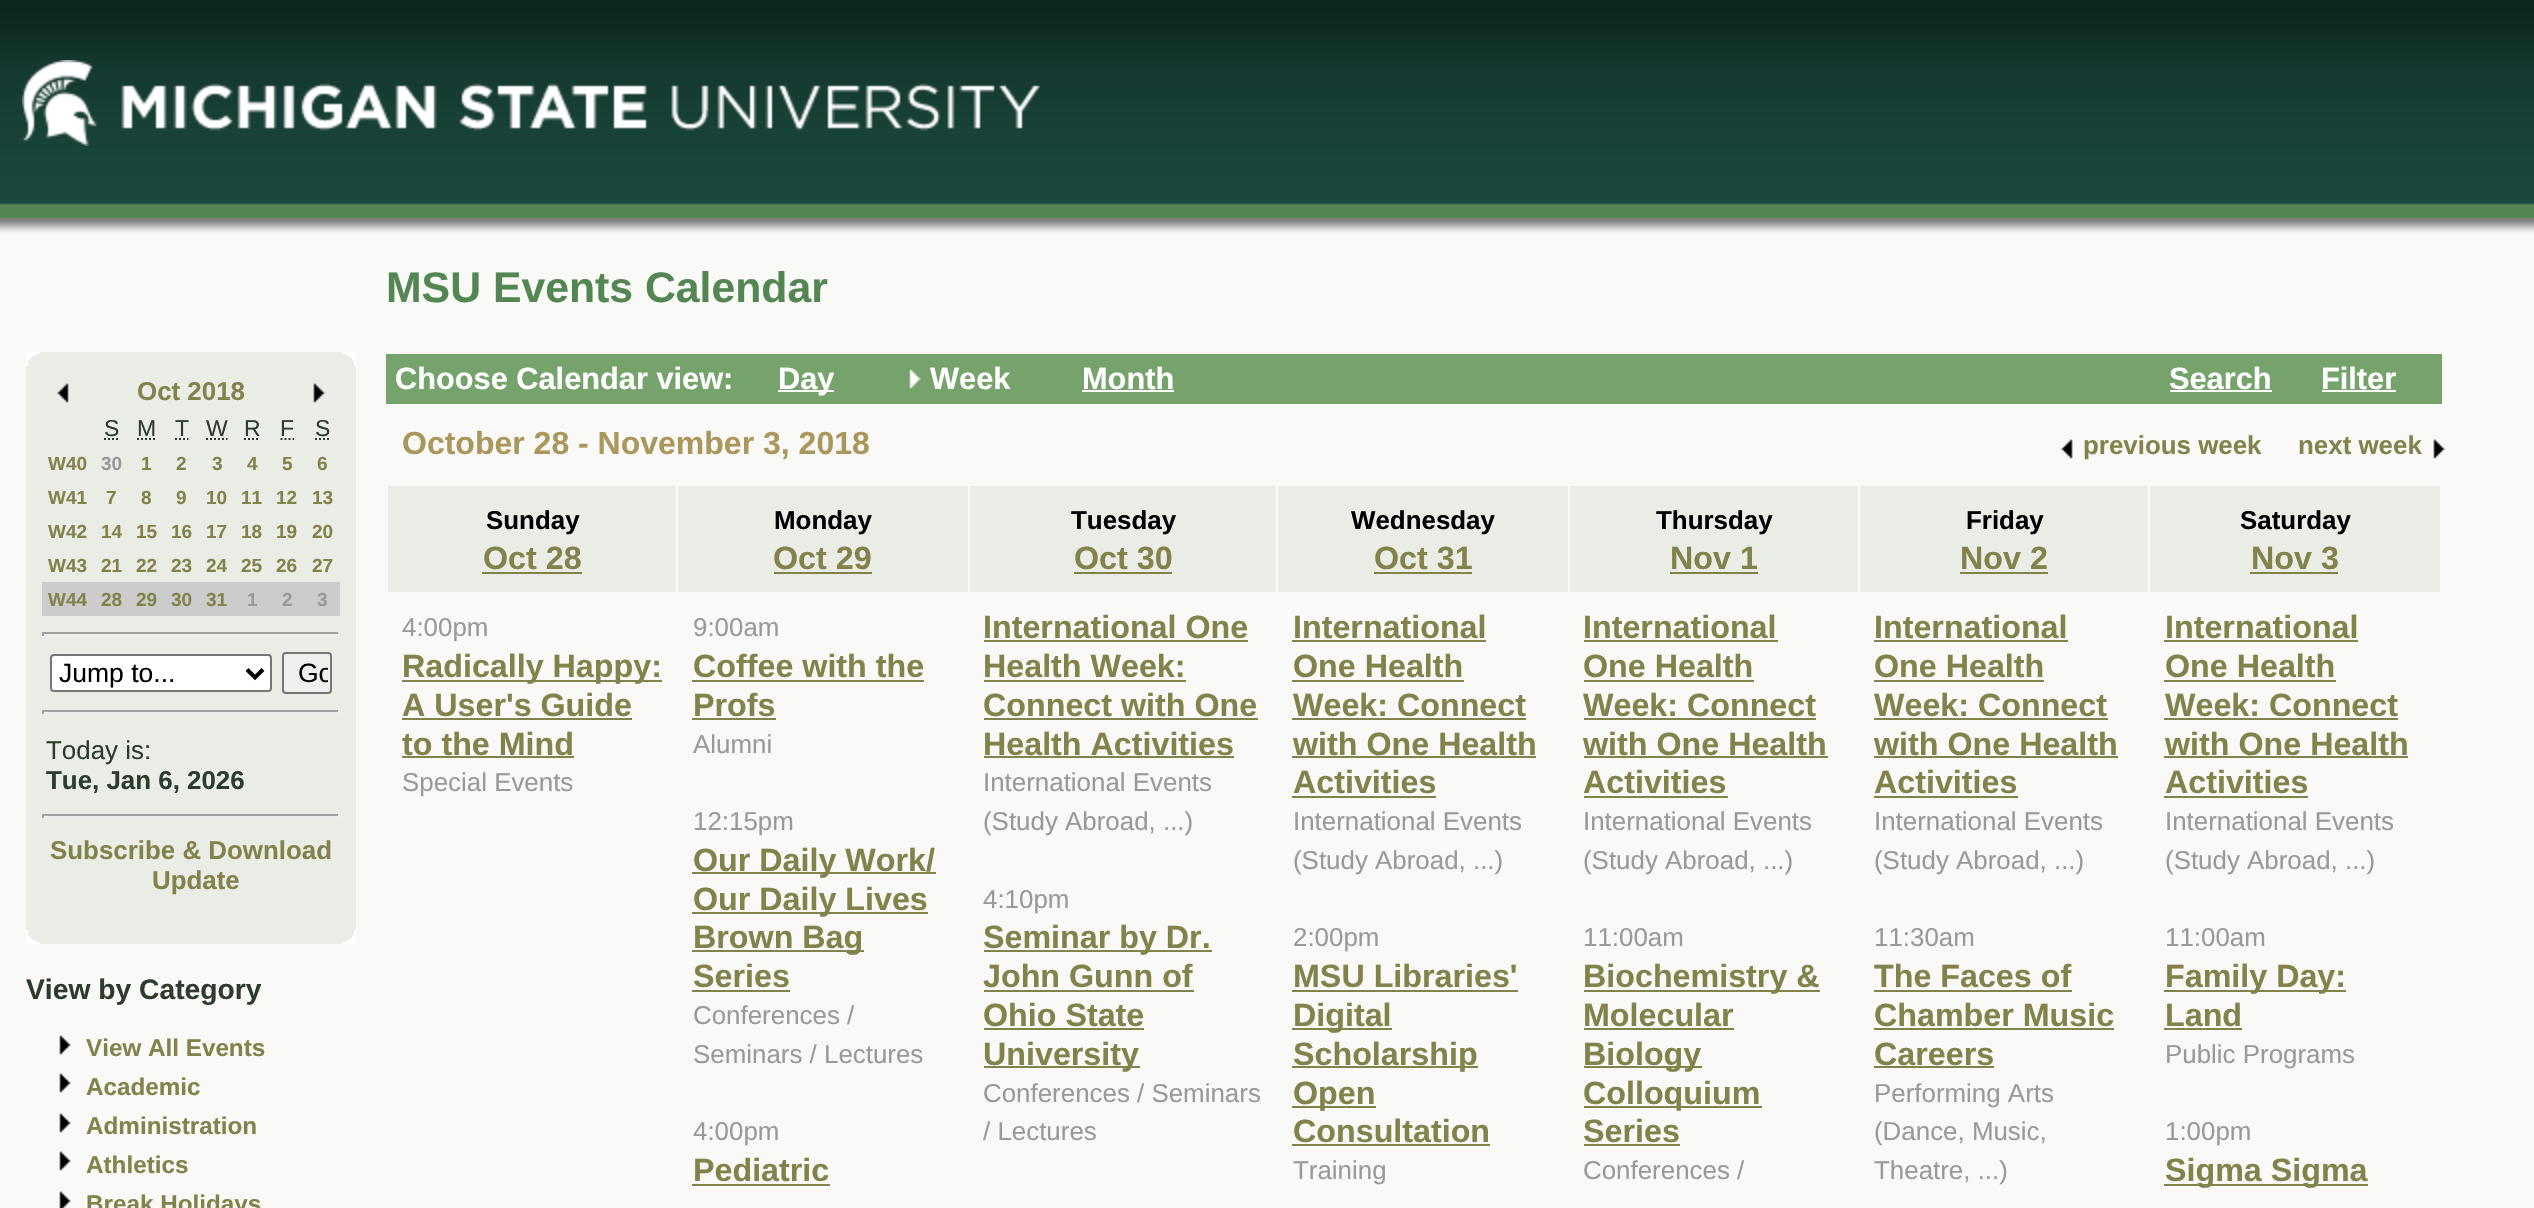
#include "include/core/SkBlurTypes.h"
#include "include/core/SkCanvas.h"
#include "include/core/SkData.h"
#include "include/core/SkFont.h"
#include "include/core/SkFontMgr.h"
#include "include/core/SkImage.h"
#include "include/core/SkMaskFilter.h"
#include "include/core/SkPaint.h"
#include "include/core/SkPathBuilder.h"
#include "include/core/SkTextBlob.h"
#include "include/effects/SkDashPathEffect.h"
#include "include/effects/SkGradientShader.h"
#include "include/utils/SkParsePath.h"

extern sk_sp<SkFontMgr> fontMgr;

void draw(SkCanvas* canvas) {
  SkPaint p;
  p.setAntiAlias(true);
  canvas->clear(SkColorSetRGB(249, 249, 247));
  canvas->drawImageRect(SkImages::DeferredFromEncodedData(SkData::MakeFromFileName("images/1.png")), SkRect::MakeLTRB(0, 0, 2534, 234), SkSamplingOptions());
  canvas->drawImageRect(SkImages::DeferredFromEncodedData(SkData::MakeFromFileName("images/2.png")), SkRect::MakeLTRB(22, 60, 1040, 146), SkSamplingOptions());
  p.setColor(SkColorSetRGB(234, 237, 230));
  canvas->drawRect(SkRect::MakeLTRB(26, 352, 42, 944), p);
  canvas->drawImageRect(SkImages::DeferredFromEncodedData(SkData::MakeFromFileName("images/3.png")), SkRect::MakeLTRB(26, 352, 41, 367), SkSamplingOptions());
  canvas->drawRect(SkRect::MakeLTRB(42, 352, 340, 944), p);
  canvas->drawRect(SkRect::MakeLTRB(340, 352, 356, 944), p);
  canvas->drawImageRect(SkImages::DeferredFromEncodedData(SkData::MakeFromFileName("images/4.png")), SkRect::MakeLTRB(341, 352, 356, 367), SkSamplingOptions());
  canvas->drawImageRect(SkImages::DeferredFromEncodedData(SkData::MakeFromFileName("images/5.png")), SkRect::MakeLTRB(57, 383, 69, 403), SkSamplingOptions());
  canvas->drawImageRect(SkImages::DeferredFromEncodedData(SkData::MakeFromFileName("images/6.png")), SkRect::MakeLTRB(313, 383, 325, 403), SkSamplingOptions());
  p.setStyle(SkPaint::kStroke_Style);
  p.setStrokeWidth(2);
  p.setColor(SkColorSetRGB(45, 60, 45));
  p.setPathEffect(SkDashPathEffect::Make({{2, 2}}, 0));
  canvas->drawPath(SkPathBuilder().moveTo(104, 439).lineTo(119, 439).detach(), p);
  p.setPathEffect(nullptr);
  p.setPathEffect(SkDashPathEffect::Make({{2, 2}}, 0));
  canvas->drawPath(SkPathBuilder().moveTo(137, 439).lineTo(156, 439).detach(), p);
  p.setPathEffect(nullptr);
  canvas->drawPath(SkPathBuilder().moveTo(175, 439).lineTo(177, 439).moveTo(179, 439).lineTo(181, 439).moveTo(183, 439).lineTo(185, 439).moveTo(187, 439).lineTo(188.5f, 439).detach(), p);
  p.setPathEffect(SkDashPathEffect::Make({{2, 2}}, 0));
  canvas->drawPath(SkPathBuilder().moveTo(206, 439).lineTo(227.5f, 439).detach(), p);
  p.setPathEffect(nullptr);
  p.setPathEffect(SkDashPathEffect::Make({{2, 2}}, 0));
  canvas->drawPath(SkPathBuilder().moveTo(244, 439).lineTo(260, 439).detach(), p);
  p.setPathEffect(nullptr);
  canvas->drawPath(SkPathBuilder().moveTo(280.5f, 439).lineTo(282.5f, 439).moveTo(284.5f, 439).lineTo(286.5f, 439).moveTo(288.5f, 439).lineTo(290.5f, 439).moveTo(292.5f, 439).lineTo(294, 439).detach(), p);
  p.setPathEffect(SkDashPathEffect::Make({{2, 2}}, 0));
  canvas->drawPath(SkPathBuilder().moveTo(315, 439).lineTo(330, 439).detach(), p);
  p.setPathEffect(nullptr);
  p.setStyle(SkPaint::kFill_Style);
  p.setColor(SkColorSetRGB(204, 204, 204));
  canvas->drawRect(SkRect::MakeLTRB(42, 582, 340, 616), p);
  p.setColor(SkColorSetRGB(159, 159, 159));
  canvas->drawRect(SkRect::MakeLTRB(42, 632, 340, 634), p);
  p.setColor(SkColorSetRGB(238, 238, 238));
  canvas->drawRect(SkRect::MakeLTRB(338, 632, 340, 636), p);
  canvas->drawRect(SkRect::MakeLTRB(42, 634, 340, 636), p);
  p.setColor(SkColorSetRGB(159, 159, 159));
  canvas->drawRect(SkRect::MakeLTRB(42, 632, 44, 636), p);
  p.setColor(SK_ColorWHITE);
  canvas->drawRoundRect(SkRect::MakeLTRB(51, 655, 271, 691), 3, 3, p);
  p.setStyle(SkPaint::kStroke_Style);
  p.setColor(SkColorSetRGB(118, 118, 118));
  canvas->drawRoundRect(SkRect::MakeLTRB(51, 655, 271, 691), 3, 3, p);
  p.setStrokeWidth(4);
  p.setColor(SK_ColorBLACK);
  canvas->drawPath(SkPathBuilder().moveTo(247, 669.5f).lineTo(255, 677.5f).lineTo(263, 669.5f).detach(), p);
  p.setStyle(SkPaint::kFill_Style);
  p.setColor(SkColorSetRGB(239, 239, 239));
  canvas->drawRoundRect(SkRect::MakeLTRB(283, 653, 331, 693), 3, 3, p);
  p.setStyle(SkPaint::kStroke_Style);
  p.setStrokeWidth(2);
  p.setColor(SkColorSetRGB(118, 118, 118));
  canvas->drawRoundRect(SkRect::MakeLTRB(283, 653, 331, 693), 3, 3, p);
  p.setStyle(SkPaint::kFill_Style);
  p.setColor(SkColorSetRGB(159, 159, 159));
  canvas->drawRect(SkRect::MakeLTRB(42, 710, 340, 712), p);
  p.setColor(SkColorSetRGB(238, 238, 238));
  canvas->drawRect(SkRect::MakeLTRB(338, 710, 340, 714), p);
  canvas->drawRect(SkRect::MakeLTRB(42, 712, 340, 714), p);
  p.setColor(SkColorSetRGB(159, 159, 159));
  canvas->drawRect(SkRect::MakeLTRB(42, 710, 44, 714), p);
  canvas->drawRect(SkRect::MakeLTRB(42, 814, 340, 816), p);
  p.setColor(SkColorSetRGB(238, 238, 238));
  canvas->drawRect(SkRect::MakeLTRB(338, 814, 340, 818), p);
  canvas->drawRect(SkRect::MakeLTRB(42, 816, 340, 818), p);
  p.setColor(SkColorSetRGB(159, 159, 159));
  canvas->drawRect(SkRect::MakeLTRB(42, 814, 44, 818), p);
  canvas->drawImageRect(SkImages::DeferredFromEncodedData(SkData::MakeFromFileName("images/7.png")), SkRect::MakeLTRB(26, 929, 41, 944), SkSamplingOptions());
  canvas->drawImageRect(SkImages::DeferredFromEncodedData(SkData::MakeFromFileName("images/8.png")), SkRect::MakeLTRB(341, 929, 356, 944), SkSamplingOptions());
  canvas->drawImageRect(SkImages::DeferredFromEncodedData(SkData::MakeFromFileName("images/9.png")), SkRect::MakeLTRB(59, 1035, 71, 1055), SkSamplingOptions());
  canvas->drawImageRect(SkImages::DeferredFromEncodedData(SkData::MakeFromFileName("images/9.png")), SkRect::MakeLTRB(59, 1073, 71, 1093), SkSamplingOptions());
  canvas->drawImageRect(SkImages::DeferredFromEncodedData(SkData::MakeFromFileName("images/9.png")), SkRect::MakeLTRB(59, 1113, 71, 1133), SkSamplingOptions());
  canvas->drawImageRect(SkImages::DeferredFromEncodedData(SkData::MakeFromFileName("images/9.png")), SkRect::MakeLTRB(59, 1151, 71, 1171), SkSamplingOptions());
  canvas->drawImageRect(SkImages::DeferredFromEncodedData(SkData::MakeFromFileName("images/10.png")), SkRect::MakeLTRB(59, 1191, 71, 1208), SkSamplingOptions());
  p.setColor(SkColorSetRGB(117, 163, 107));
  canvas->drawRect(SkRect::MakeLTRB(386, 354, 2442, 404), p);
  p.setColor(SK_ColorWHITE);
  canvas->drawRect(SkRect::MakeLTRB(778, 390, 834, 392), p);
  canvas->drawImageRect(SkImages::DeferredFromEncodedData(SkData::MakeFromFileName("images/11.png")), SkRect::MakeLTRB(909, 369, 921, 389), SkSamplingOptions());
  canvas->drawRect(SkRect::MakeLTRB(1082, 390, 1174, 392), p);
  canvas->drawRect(SkRect::MakeLTRB(2170, 390, 2272, 392), p);
  canvas->drawRect(SkRect::MakeLTRB(2322, 390, 2396, 392), p);
  canvas->drawImageRect(SkImages::DeferredFromEncodedData(SkData::MakeFromFileName("images/12.png")), SkRect::MakeLTRB(2061, 439, 2073, 459), SkSamplingOptions());
  canvas->drawImageRect(SkImages::DeferredFromEncodedData(SkData::MakeFromFileName("images/9.png")), SkRect::MakeLTRB(2433, 439, 2445, 459), SkSamplingOptions());
  p.setColor(SkColorSetRGB(234, 237, 230));
  canvas->drawRect(SkRect::MakeLTRB(388, 486, 676, 592), p);
  p.setColor(SkColorSetRGB(130, 130, 75));
  canvas->drawRect(SkRect::MakeLTRB(482, 572, 582, 574), p);
  p.setColor(SkColorSetRGB(234, 237, 230));
  canvas->drawRect(SkRect::MakeLTRB(678, 486, 968, 592), p);
  p.setColor(SkColorSetRGB(130, 130, 75));
  canvas->drawRect(SkRect::MakeLTRB(774, 572, 872, 574), p);
  p.setColor(SkColorSetRGB(234, 237, 230));
  canvas->drawRect(SkRect::MakeLTRB(970, 486, 1276, 592), p);
  p.setColor(SkColorSetRGB(130, 130, 75));
  canvas->drawRect(SkRect::MakeLTRB(1074, 572, 1172, 574), p);
  p.setColor(SkColorSetRGB(234, 237, 230));
  canvas->drawRect(SkRect::MakeLTRB(1278, 486, 1568, 592), p);
  p.setColor(SkColorSetRGB(130, 130, 75));
  canvas->drawRect(SkRect::MakeLTRB(1374, 572, 1472, 574), p);
  p.setColor(SkColorSetRGB(234, 237, 230));
  canvas->drawRect(SkRect::MakeLTRB(1570, 486, 1858, 592), p);
  p.setColor(SkColorSetRGB(130, 130, 75));
  canvas->drawRect(SkRect::MakeLTRB(1670, 572, 1758, 574), p);
  p.setColor(SkColorSetRGB(234, 237, 230));
  canvas->drawRect(SkRect::MakeLTRB(1860, 486, 2148, 592), p);
  p.setColor(SkColorSetRGB(130, 130, 75));
  canvas->drawRect(SkRect::MakeLTRB(1960, 572, 2048, 574), p);
  p.setColor(SkColorSetRGB(234, 237, 230));
  canvas->drawRect(SkRect::MakeLTRB(2150, 486, 2440, 592), p);
  p.setColor(SkColorSetRGB(130, 130, 75));
  canvas->drawRect(SkRect::MakeLTRB(2250, 572, 2338, 574), p);
  canvas->drawRect(SkRect::MakeLTRB(402, 680, 662, 682), p);
  canvas->drawRect(SkRect::MakeLTRB(402, 718, 632, 720), p);
  canvas->drawRect(SkRect::MakeLTRB(402, 756, 574, 758), p);
  canvas->drawRect(SkRect::MakeLTRB(692, 680, 924, 682), p);
  canvas->drawRect(SkRect::MakeLTRB(692, 718, 776, 720), p);
  canvas->drawRect(SkRect::MakeLTRB(692, 872, 936, 874), p);
  canvas->drawRect(SkRect::MakeLTRB(692, 912, 928, 914), p);
  canvas->drawRect(SkRect::MakeLTRB(692, 950, 864, 952), p);
  canvas->drawRect(SkRect::MakeLTRB(692, 990, 790, 992), p);
  canvas->drawRect(SkRect::MakeLTRB(692, 1184, 830, 1186), p);
  canvas->drawRect(SkRect::MakeLTRB(984, 640, 1248, 642), p);
  canvas->drawRect(SkRect::MakeLTRB(984, 680, 1186, 682), p);
  canvas->drawRect(SkRect::MakeLTRB(984, 718, 1258, 720), p);
  canvas->drawRect(SkRect::MakeLTRB(984, 756, 1234, 758), p);
  canvas->drawRect(SkRect::MakeLTRB(984, 950, 1212, 952), p);
  canvas->drawRect(SkRect::MakeLTRB(984, 990, 1194, 992), p);
  canvas->drawRect(SkRect::MakeLTRB(984, 1028, 1144, 1030), p);
  canvas->drawRect(SkRect::MakeLTRB(984, 1066, 1140, 1068), p);
  canvas->drawRect(SkRect::MakeLTRB(1292, 640, 1486, 642), p);
  canvas->drawRect(SkRect::MakeLTRB(1292, 680, 1464, 682), p);
  canvas->drawRect(SkRect::MakeLTRB(1292, 718, 1526, 720), p);
  canvas->drawRect(SkRect::MakeLTRB(1292, 756, 1536, 758), p);
  canvas->drawRect(SkRect::MakeLTRB(1292, 796, 1436, 798), p);
  canvas->drawRect(SkRect::MakeLTRB(1292, 990, 1518, 992), p);
  canvas->drawRect(SkRect::MakeLTRB(1292, 1028, 1392, 1030), p);
  canvas->drawRect(SkRect::MakeLTRB(1292, 1066, 1478, 1068), p);
  canvas->drawRect(SkRect::MakeLTRB(1292, 1106, 1376, 1108), p);
  canvas->drawRect(SkRect::MakeLTRB(1292, 1144, 1490, 1146), p);
  canvas->drawRect(SkRect::MakeLTRB(1584, 640, 1778, 642), p);
  canvas->drawRect(SkRect::MakeLTRB(1584, 680, 1754, 682), p);
  canvas->drawRect(SkRect::MakeLTRB(1584, 718, 1816, 720), p);
  canvas->drawRect(SkRect::MakeLTRB(1584, 756, 1828, 758), p);
  canvas->drawRect(SkRect::MakeLTRB(1584, 796, 1728, 798), p);
  canvas->drawRect(SkRect::MakeLTRB(1584, 990, 1820, 992), p);
  canvas->drawRect(SkRect::MakeLTRB(1584, 1028, 1734, 1030), p);
  canvas->drawRect(SkRect::MakeLTRB(1584, 1066, 1702, 1068), p);
  canvas->drawRect(SkRect::MakeLTRB(1584, 1106, 1762, 1108), p);
  canvas->drawRect(SkRect::MakeLTRB(1584, 1144, 1680, 1146), p);
  canvas->drawRect(SkRect::MakeLTRB(1874, 640, 2068, 642), p);
  canvas->drawRect(SkRect::MakeLTRB(1874, 680, 2044, 682), p);
  canvas->drawRect(SkRect::MakeLTRB(1874, 718, 2108, 720), p);
  canvas->drawRect(SkRect::MakeLTRB(1874, 756, 2118, 758), p);
  canvas->drawRect(SkRect::MakeLTRB(1874, 796, 2018, 798), p);
  canvas->drawRect(SkRect::MakeLTRB(1874, 990, 2072, 992), p);
  canvas->drawRect(SkRect::MakeLTRB(1874, 1028, 2114, 1030), p);
  canvas->drawRect(SkRect::MakeLTRB(1874, 1066, 1994, 1068), p);
  canvas->drawRect(SkRect::MakeLTRB(2164, 640, 2358, 642), p);
  canvas->drawRect(SkRect::MakeLTRB(2164, 680, 2336, 682), p);
  canvas->drawRect(SkRect::MakeLTRB(2164, 718, 2398, 720), p);
  canvas->drawRect(SkRect::MakeLTRB(2164, 756, 2408, 758), p);
  canvas->drawRect(SkRect::MakeLTRB(2164, 796, 2308, 798), p);
  canvas->drawRect(SkRect::MakeLTRB(2164, 990, 2346, 992), p);
  canvas->drawRect(SkRect::MakeLTRB(2164, 1028, 2242, 1030), p);
  canvas->drawRect(SkRect::MakeLTRB(2164, 1184, 2368, 1186), p);
  SkFont font1(fontMgr->matchFamilyStyle("Liberation Sans", SkFontStyle::Bold()), 25.9f);
  font1.setSubpixel(true);
  canvas->drawString("Oct 2018", 137, 400, font1, p);
  SkFont font2(fontMgr->matchFamilyStyle("Liberation Sans", SkFontStyle::Normal()), 23);
  font2.setSubpixel(true);
  p.setColor(SkColorSetRGB(45, 60, 45));
  canvas->drawString("S", 104, 436, font2, p);
  canvas->drawString("M", 137, 436, font2, p);
  canvas->drawString("T", 175, 436, font2, p);
  canvas->drawString("W", 206, 436, font2, p);
  canvas->drawString("R", 244, 436, font2, p);
  canvas->drawString("F", 280, 436, font2, p);
  canvas->drawString("S", 315, 436, font2, p);
  SkFont font3(fontMgr->matchFamilyStyle("Liberation Sans", SkFontStyle::Bold()), 19);
  font3.setSubpixel(true);
  p.setColor(SkColorSetRGB(130, 130, 75));
  canvas->drawString("W40", 48, 470, font3, p);
  p.setColor(SkColorSetRGB(153, 153, 153));
  canvas->drawString("30", 101, 470, font3, p);
  p.setColor(SkColorSetRGB(130, 130, 75));
  canvas->drawString("1", 141, 470, font3, p);
  canvas->drawString("2", 176, 470, font3, p);
  canvas->drawString("3", 212, 470, font3, p);
  canvas->drawString("4", 247, 470, font3, p);
  canvas->drawString("5", 282, 470, font3, p);
  canvas->drawString("6", 317, 470, font3, p);
  canvas->drawString("W41", 48, 504, font3, p);
  canvas->drawString("7", 106, 504, font3, p);
  canvas->drawString("8", 141, 504, font3, p);
  canvas->drawString("9", 176, 504, font3, p);
  canvas->drawString("10", 206, 504, font3, p);
  canvas->drawString("11", 241, 504, font3, p);
  canvas->drawString("12", 276, 504, font3, p);
  canvas->drawString("13", 312, 504, font3, p);
  canvas->drawString("W42", 48, 538, font3, p);
  canvas->drawString("14", 101, 538, font3, p);
  canvas->drawString("15", 136, 538, font3, p);
  canvas->drawString("16", 171, 538, font3, p);
  canvas->drawString("17", 206, 538, font3, p);
  canvas->drawString("18", 241, 538, font3, p);
  canvas->drawString("19", 276, 538, font3, p);
  canvas->drawString("20", 312, 538, font3, p);
  canvas->drawString("W43", 48, 572, font3, p);
  canvas->drawString("21", 101, 572, font3, p);
  canvas->drawString("22", 136, 572, font3, p);
  canvas->drawString("23", 171, 572, font3, p);
  canvas->drawString("24", 206, 572, font3, p);
  canvas->drawString("25", 241, 572, font3, p);
  canvas->drawString("26", 276, 572, font3, p);
  canvas->drawString("27", 312, 572, font3, p);
  canvas->drawString("W44", 48, 606, font3, p);
  canvas->drawString("28", 101, 606, font3, p);
  canvas->drawString("29", 136, 606, font3, p);
  canvas->drawString("30", 171, 606, font3, p);
  canvas->drawString("31", 206, 606, font3, p);
  p.setColor(SkColorSetRGB(153, 153, 153));
  canvas->drawString("1", 247, 606, font3, p);
  canvas->drawString("2", 282, 606, font3, p);
  canvas->drawString("3", 317, 606, font3, p);
  SkFont font4(fontMgr->matchFamilyStyle("Liberation Sans", SkFontStyle::Normal()), 26.5f);
  font4.setSubpixel(true);
  p.setColor(SK_ColorBLACK);
  canvas->drawString("Jump to...", 59, 682, font4, p);
  canvas->save();
  canvas->clipRect(SkRect::MakeLTRB(286, 656, 328, 690));
  canvas->drawString("Go", 298, 682, font4, p);
  canvas->restore();
  SkFont font5(fontMgr->matchFamilyStyle("Liberation Sans", SkFontStyle::Normal()), 25.9f);
  font5.setSubpixel(true);
  p.setColor(SkColorSetRGB(45, 60, 45));
  canvas->drawString("Today is:", 46, 759, font5, p);
  canvas->drawString("Tue, Jan 6, 2026", 46, 789, font1, p);
  p.setColor(SkColorSetRGB(130, 130, 75));
  canvas->drawString("Subscribe & Download", 50, 859, font1, p);
  canvas->drawString("Update", 152, 889, font1, p);
  SkFont font6(fontMgr->matchFamilyStyle("Liberation Sans", SkFontStyle::Bold()), 28.25f);
  font6.setSubpixel(true);
  p.setColor(SkColorSetRGB(45, 60, 45));
  canvas->drawString("View by Category", 26, 999, font6, p);
  SkFont font7(fontMgr->matchFamilyStyle("Liberation Sans", SkFontStyle::Bold()), 24.25f);
  font7.setSubpixel(true);
  p.setColor(SkColorSetRGB(130, 130, 75));
  canvas->drawString("View All Events", 86, 1056, font7, p);
  canvas->drawString("Academic", 86, 1095, font7, p);
  canvas->drawString("Administration", 86, 1134, font7, p);
  canvas->drawString("Athletics", 86, 1173, font7, p);
  canvas->drawString("Break,Holidays", 86, 1212, font7, p);
  SkFont font8(fontMgr->matchFamilyStyle("Liberation Sans", SkFontStyle::Bold()), 42.75f);
  font8.setSubpixel(true);
  p.setColor(SkColorSetRGB(84, 134, 84));
  canvas->drawString("MSU Events Calendar", 386, 302, font8, p);
  SkFont font9(fontMgr->matchFamilyStyle("Liberation Sans", SkFontStyle::Bold()), 30.75f);
  font9.setSubpixel(true);
  p.setColor(SK_ColorWHITE);
  canvas->drawString("Choose Calendar view:", 395, 389, font9, p);
  canvas->drawString("Day", 778, 389, font9, p);
  canvas->drawString("Week", 930, 389, font9, p);
  canvas->drawString("Month", 1082, 389, font9, p);
  canvas->drawString("Search", 2169, 389, font9, p);
  canvas->drawString("Filter", 2321, 389, font9, p);
  SkFont font10(fontMgr->matchFamilyStyle("Liberation Sans", SkFontStyle::Bold()), 32);
  font10.setSubpixel(true);
  p.setColor(SkColorSetRGB(170, 151, 91));
  canvas->drawString("October 28 - November 3, 2018", 402, 454, font10, p);
  p.setColor(SkColorSetRGB(130, 130, 75));
  canvas->drawString("previous week", 2083, 454, font1, p);
  canvas->drawString("next week", 2298, 454, font1, p);
  p.setColor(SK_ColorBLACK);
  canvas->drawString("Sunday", 486, 529, font1, p);
  SkFont font11(fontMgr->matchFamilyStyle("Liberation Sans", SkFontStyle::Bold()), 32.25f);
  font11.setSubpixel(true);
  p.setColor(SkColorSetRGB(130, 130, 75));
  canvas->drawString("Oct 28", 483, 569, font11, p);
  p.setColor(SK_ColorBLACK);
  canvas->drawString("Monday", 774, 529, font1, p);
  p.setColor(SkColorSetRGB(130, 130, 75));
  canvas->drawString("Oct 29", 773, 569, font11, p);
  p.setColor(SK_ColorBLACK);
  canvas->drawString("Tuesday", 1071, 529, font1, p);
  p.setColor(SkColorSetRGB(130, 130, 75));
  canvas->drawString("Oct 30", 1074, 569, font11, p);
  p.setColor(SK_ColorBLACK);
  canvas->drawString("Wednesday", 1351, 529, font1, p);
  p.setColor(SkColorSetRGB(130, 130, 75));
  canvas->drawString("Oct 31", 1374, 569, font11, p);
  p.setColor(SK_ColorBLACK);
  canvas->drawString("Thursday", 1656, 529, font1, p);
  p.setColor(SkColorSetRGB(130, 130, 75));
  canvas->drawString("Nov 1", 1670, 569, font11, p);
  p.setColor(SK_ColorBLACK);
  canvas->drawString("Friday", 1966, 529, font1, p);
  p.setColor(SkColorSetRGB(130, 130, 75));
  canvas->drawString("Nov 2", 1960, 569, font11, p);
  p.setColor(SK_ColorBLACK);
  canvas->drawString("Saturday", 2240, 529, font1, p);
  p.setColor(SkColorSetRGB(130, 130, 75));
  canvas->drawString("Nov 3", 2251, 569, font11, p);
  p.setColor(SkColorSetRGB(153, 153, 153));
  canvas->drawString("4:00pm", 402, 636, font5, p);
  p.setColor(SkColorSetRGB(130, 130, 75));
  canvas->drawString("Radically Happy:", 402, 677, font11, p);
  canvas->drawString("A User's Guide", 402, 716, font11, p);
  canvas->drawString("to the Mind", 402, 755, font11, p);
  p.setColor(SkColorSetRGB(153, 153, 153));
  canvas->drawString("Special Events", 402, 791, font5, p);
  canvas->drawString("9:00am", 693, 636, font5, p);
  p.setColor(SkColorSetRGB(130, 130, 75));
  canvas->drawString("Coffee with the", 693, 677, font11, p);
  canvas->drawString("Profs", 693, 716, font11, p);
  p.setColor(SkColorSetRGB(153, 153, 153));
  canvas->drawString("Alumni", 693, 753, font5, p);
  canvas->drawString("12:15pm", 693, 830, font5, p);
  p.setColor(SkColorSetRGB(130, 130, 75));
  canvas->drawString("Our Daily Work/", 693, 871, font11, p);
  canvas->drawString("Our Daily Lives", 693, 910, font11, p);
  canvas->drawString("Brown Bag", 693, 948, font11, p);
  canvas->drawString("Series", 693, 987, font11, p);
  p.setColor(SkColorSetRGB(153, 153, 153));
  canvas->drawString("Conferences /", 693, 1024, font5, p);
  canvas->drawString("Seminars / Lectures", 693, 1063, font5, p);
  canvas->drawString("4:00pm", 693, 1140, font5, p);
  p.setColor(SkColorSetRGB(130, 130, 75));
  canvas->drawString("Pediatric", 693, 1181, font11, p);
  canvas->drawString("International One", 983, 638, font11, p);
  canvas->drawString("Health Week:", 983, 677, font11, p);
  canvas->drawString("Connect with One", 983, 716, font11, p);
  canvas->drawString("Health Activities", 983, 755, font11, p);
  p.setColor(SkColorSetRGB(153, 153, 153));
  canvas->drawString("International Events", 983, 791, font5, p);
  canvas->drawString("(Study Abroad, ...)", 983, 830, font5, p);
  canvas->drawString("4:10pm", 983, 908, font5, p);
  p.setColor(SkColorSetRGB(130, 130, 75));
  canvas->drawString("Seminar by Dr.", 983, 948, font11, p);
  canvas->drawString("John Gunn of", 983, 987, font11, p);
  canvas->drawString("Ohio State", 983, 1026, font11, p);
  canvas->drawString("University", 983, 1065, font11, p);
  p.setColor(SkColorSetRGB(153, 153, 153));
  canvas->drawString("Conferences / Seminars", 983, 1102, font5, p);
  canvas->drawString("/ Lectures", 983, 1140, font5, p);
  p.setColor(SkColorSetRGB(130, 130, 75));
  canvas->drawString("International", 1293, 638, font11, p);
  canvas->drawString("One Health", 1293, 677, font11, p);
  canvas->drawString("Week: Connect", 1293, 716, font11, p);
  canvas->drawString("with One Health", 1293, 755, font11, p);
  canvas->drawString("Activities", 1293, 793, font11, p);
  p.setColor(SkColorSetRGB(153, 153, 153));
  canvas->drawString("International Events", 1293, 830, font5, p);
  canvas->drawString("(Study Abroad, ...)", 1293, 869, font5, p);
  canvas->drawString("2:00pm", 1293, 946, font5, p);
  p.setColor(SkColorSetRGB(130, 130, 75));
  canvas->drawString("MSU Libraries'", 1293, 987, font11, p);
  canvas->drawString("Digital", 1293, 1026, font11, p);
  canvas->drawString("Scholarship", 1293, 1065, font11, p);
  canvas->drawString("Open", 1293, 1104, font11, p);
  canvas->drawString("Consultation", 1293, 1142, font11, p);
  p.setColor(SkColorSetRGB(153, 153, 153));
  canvas->drawString("Training", 1293, 1179, font5, p);
  p.setColor(SkColorSetRGB(130, 130, 75));
  canvas->drawString("International", 1583, 638, font11, p);
  canvas->drawString("One Health", 1583, 677, font11, p);
  canvas->drawString("Week: Connect", 1583, 716, font11, p);
  canvas->drawString("with One Health", 1583, 755, font11, p);
  canvas->drawString("Activities", 1583, 793, font11, p);
  p.setColor(SkColorSetRGB(153, 153, 153));
  canvas->drawString("International Events", 1583, 830, font5, p);
  canvas->drawString("(Study Abroad, ...)", 1583, 869, font5, p);
  canvas->drawString("11:00am", 1583, 946, font5, p);
  p.setColor(SkColorSetRGB(130, 130, 75));
  canvas->drawString("Biochemistry &", 1583, 987, font11, p);
  canvas->drawString("Molecular", 1583, 1026, font11, p);
  canvas->drawString("Biology", 1583, 1065, font11, p);
  canvas->drawString("Colloquium", 1583, 1104, font11, p);
  canvas->drawString("Series", 1583, 1142, font11, p);
  p.setColor(SkColorSetRGB(153, 153, 153));
  canvas->drawString("Conferences /", 1583, 1179, font5, p);
  p.setColor(SkColorSetRGB(130, 130, 75));
  canvas->drawString("International", 1874, 638, font11, p);
  canvas->drawString("One Health", 1874, 677, font11, p);
  canvas->drawString("Week: Connect", 1874, 716, font11, p);
  canvas->drawString("with One Health", 1874, 755, font11, p);
  canvas->drawString("Activities", 1874, 793, font11, p);
  p.setColor(SkColorSetRGB(153, 153, 153));
  canvas->drawString("International Events", 1874, 830, font5, p);
  canvas->drawString("(Study Abroad, ...)", 1874, 869, font5, p);
  canvas->drawString("11:30am", 1874, 946, font5, p);
  p.setColor(SkColorSetRGB(130, 130, 75));
  canvas->drawString("The Faces of", 1874, 987, font11, p);
  canvas->drawString("Chamber Music", 1874, 1026, font11, p);
  canvas->drawString("Careers", 1874, 1065, font11, p);
  p.setColor(SkColorSetRGB(153, 153, 153));
  canvas->drawString("Performing Arts", 1874, 1102, font5, p);
  canvas->drawString("(Dance, Music,", 1874, 1140, font5, p);
  canvas->drawString("Theatre, ...)", 1874, 1179, font5, p);
  p.setColor(SkColorSetRGB(130, 130, 75));
  canvas->drawString("International", 2165, 638, font11, p);
  canvas->drawString("One Health", 2165, 677, font11, p);
  canvas->drawString("Week: Connect", 2165, 716, font11, p);
  canvas->drawString("with One Health", 2165, 755, font11, p);
  canvas->drawString("Activities", 2165, 793, font11, p);
  p.setColor(SkColorSetRGB(153, 153, 153));
  canvas->drawString("International Events", 2165, 830, font5, p);
  canvas->drawString("(Study Abroad, ...)", 2165, 869, font5, p);
  canvas->drawString("11:00am", 2165, 946, font5, p);
  p.setColor(SkColorSetRGB(130, 130, 75));
  canvas->drawString("Family Day:", 2165, 987, font11, p);
  canvas->drawString("Land", 2165, 1026, font11, p);
  p.setColor(SkColorSetRGB(153, 153, 153));
  canvas->drawString("Public Programs", 2165, 1063, font5, p);
  canvas->drawString("1:00pm", 2165, 1140, font5, p);
  p.setColor(SkColorSetRGB(130, 130, 75));
  canvas->drawString("Sigma Sigma", 2165, 1181, font11, p);
}
